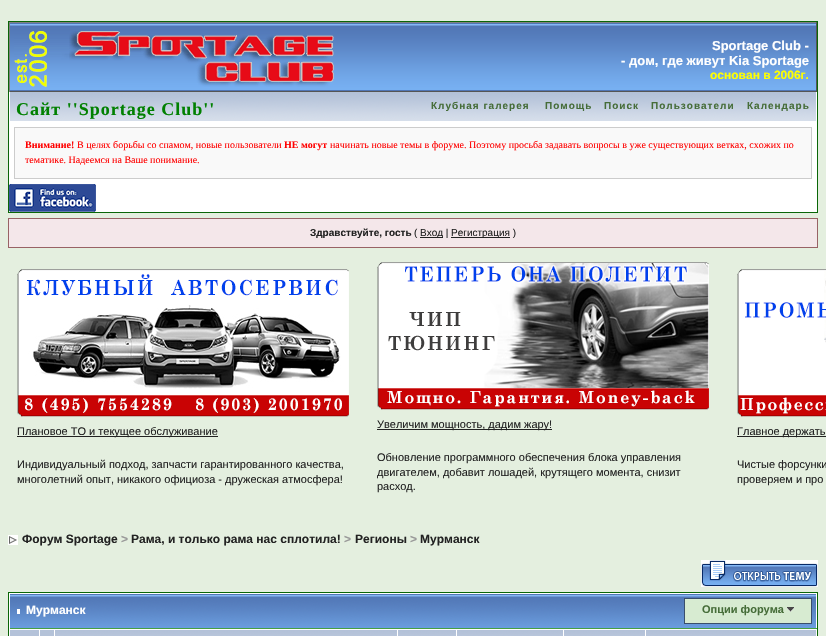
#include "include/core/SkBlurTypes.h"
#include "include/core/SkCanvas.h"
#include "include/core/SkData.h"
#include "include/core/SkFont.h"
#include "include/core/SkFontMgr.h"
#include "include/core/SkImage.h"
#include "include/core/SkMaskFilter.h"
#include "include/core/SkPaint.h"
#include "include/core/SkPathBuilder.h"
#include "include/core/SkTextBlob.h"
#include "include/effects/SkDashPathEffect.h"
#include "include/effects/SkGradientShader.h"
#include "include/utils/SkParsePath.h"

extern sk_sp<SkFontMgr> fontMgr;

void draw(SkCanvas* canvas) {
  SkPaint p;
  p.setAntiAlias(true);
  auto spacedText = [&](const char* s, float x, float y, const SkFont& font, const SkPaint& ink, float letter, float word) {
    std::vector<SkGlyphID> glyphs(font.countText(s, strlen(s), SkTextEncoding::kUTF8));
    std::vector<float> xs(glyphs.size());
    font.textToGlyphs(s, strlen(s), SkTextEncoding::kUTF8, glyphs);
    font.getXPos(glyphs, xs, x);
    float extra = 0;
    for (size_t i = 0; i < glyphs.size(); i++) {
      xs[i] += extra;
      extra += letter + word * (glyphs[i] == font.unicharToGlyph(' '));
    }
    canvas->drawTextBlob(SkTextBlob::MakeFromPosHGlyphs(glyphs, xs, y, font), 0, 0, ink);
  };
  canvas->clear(SkColorSetRGB(228, 239, 223));
  p.setColor(SK_ColorWHITE);
  canvas->drawRect(SkRect::MakeLTRB(9, 122, 817, 212), p);
  p.setStyle(SkPaint::kStroke_Style);
  p.setStrokeWidth(1);
  p.setColor(SkColorSetRGB(10, 102, 7));
  canvas->drawRect(SkRect::MakeLTRB(8.5f, 21.5f, 817.5f, 212.5f), p);
  p.setStyle(SkPaint::kFill_Style);
  p.setColor(SkColorSetRGB(128, 128, 128));
  canvas->drawRect(SkRect::MakeLTRB(9, 22, 817, 23), p);
  p.setColor(SkColorSetRGB(85, 85, 85));
  canvas->drawRect(SkRect::MakeLTRB(816, 22, 817, 92), p);
  canvas->drawRect(SkRect::MakeLTRB(9, 91, 817, 92), p);
  p.setColor(SkColorSetRGB(128, 128, 128));
  canvas->drawRect(SkRect::MakeLTRB(9, 22, 10, 92), p);
  canvas->drawImageRect(SkImages::DeferredFromEncodedData(SkData::MakeFromFileName("images/1.png")), SkRect::MakeLTRB(10, 23, 519, 91), SkSamplingOptions());
  canvas->drawImageRect(SkImages::DeferredFromEncodedData(SkData::MakeFromFileName("images/2.png")), SkRect::MakeLTRB(14, 31, 334, 87), SkSamplingOptions());
  canvas->drawImageRect(SkImages::DeferredFromEncodedData(SkData::MakeFromFileName("images/3.png")), SkRect::MakeLTRB(519, 23, 816, 91), SkSamplingOptions());
  canvas->drawImageRect(SkImages::DeferredFromEncodedData(SkData::MakeFromFileName("images/4.png")), SkRect::MakeLTRB(10, 92, 816, 121), SkSamplingOptions());
  p.setColor(SK_ColorWHITE);
  canvas->drawRect(SkRect::MakeLTRB(816, 92, 817, 122), p);
  canvas->drawRect(SkRect::MakeLTRB(9, 121, 817, 122), p);
  canvas->drawRect(SkRect::MakeLTRB(9, 92, 10, 122), p);
  p.setColor(SkColorSetRGB(249, 249, 249));
  canvas->drawRect(SkRect::MakeLTRB(14.5f, 127.5f, 811.5f, 178.5f), p);
  p.setStyle(SkPaint::kStroke_Style);
  p.setColor(SkColorSetRGB(204, 204, 204));
  canvas->drawRect(SkRect::MakeLTRB(14.5f, 127.5f, 811.5f, 178.5f), p);
  canvas->drawImageRect(SkImages::DeferredFromEncodedData(SkData::MakeFromFileName("images/5.png")), SkRect::MakeLTRB(9, 184, 96, 212), SkSamplingOptions());
  p.setStyle(SkPaint::kFill_Style);
  p.setColor(SkColorSetRGB(244, 231, 234));
  canvas->drawRect(SkRect::MakeLTRB(8.5f, 218.5f, 817.5f, 247.5f), p);
  p.setStyle(SkPaint::kStroke_Style);
  p.setColor(SkColorSetRGB(152, 98, 101));
  canvas->drawRect(SkRect::MakeLTRB(8.5f, 218.5f, 817.5f, 247.5f), p);
  p.setStyle(SkPaint::kFill_Style);
  p.setColor(SkColorSetRGB(34, 34, 34));
  canvas->drawRect(SkRect::MakeLTRB(420, 237, 443, 238), p);
  canvas->drawRect(SkRect::MakeLTRB(451, 237, 510, 238), p);
  canvas->drawImageRect(SkImages::DeferredFromEncodedData(SkData::MakeFromFileName("images/6.png")), SkRect::MakeLTRB(17, 269, 349, 417), SkSamplingOptions());
  canvas->drawRect(SkRect::MakeLTRB(17, 436, 218, 437), p);
  canvas->drawImageRect(SkImages::DeferredFromEncodedData(SkData::MakeFromFileName("images/7.png")), SkRect::MakeLTRB(377, 262, 709, 410), SkSamplingOptions());
  canvas->drawRect(SkRect::MakeLTRB(377, 429, 552, 430), p);
  canvas->drawImageRect(SkImages::DeferredFromEncodedData(SkData::MakeFromFileName("images/8.png")), SkRect::MakeLTRB(737, 269, 826, 417), SkSamplingOptions());
  canvas->drawRect(SkRect::MakeLTRB(737, 436, 826, 437), p);
  canvas->drawImageRect(SkImages::DeferredFromEncodedData(SkData::MakeFromFileName("images/9.png")), SkRect::MakeLTRB(8, 535, 18, 545), SkSamplingOptions());
  canvas->drawImageRect(SkImages::DeferredFromEncodedData(SkData::MakeFromFileName("images/10.png")), SkRect::MakeLTRB(701, 560, 818, 587), SkSamplingOptions());
  p.setColor(SK_ColorWHITE);
  canvas->drawRect(SkRect::MakeLTRB(9, 629, 817, 636), p);
  p.setStyle(SkPaint::kStroke_Style);
  p.setColor(SkColorSetRGB(10, 102, 7));
  canvas->drawRect(SkRect::MakeLTRB(8.5f, 592.5f, 817.5f, 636.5f), p);
  canvas->drawImageRect(SkImages::DeferredFromEncodedData(SkData::MakeFromFileName("images/11.png")), SkRect::MakeLTRB(10, 594, 816, 628), SkSamplingOptions());
  p.setStyle(SkPaint::kFill_Style);
  p.setColor(SK_ColorWHITE);
  canvas->drawRect(SkRect::MakeLTRB(9, 593, 817, 594), p);
  canvas->drawRect(SkRect::MakeLTRB(816, 593, 817, 629), p);
  p.setColor(SkColorSetRGB(70, 159, 67));
  canvas->drawRect(SkRect::MakeLTRB(9, 628, 817, 629), p);
  p.setColor(SK_ColorWHITE);
  canvas->drawRect(SkRect::MakeLTRB(9, 593, 10, 629), p);
  canvas->drawRect(SkRect::MakeLTRB(17, 609, 20, 614), p);
  p.setColor(SkColorSetRGB(215, 235, 209));
  canvas->drawRect(SkRect::MakeLTRB(684.5f, 598.5f, 811.5f, 623.5f), p);
  p.setStyle(SkPaint::kStroke_Style);
  p.setColor(SkColorSetRGB(58, 79, 108));
  canvas->drawRect(SkRect::MakeLTRB(684.5f, 598.5f, 811.5f, 623.5f), p);
  canvas->drawImageRect(SkImages::DeferredFromEncodedData(SkData::MakeFromFileName("images/12.png")), SkRect::MakeLTRB(787, 607, 794, 612), SkSamplingOptions());
  p.setStyle(SkPaint::kFill_Style);
  p.setColor(SkColorSetRGB(180, 194, 217));
  canvas->drawRect(SkRect::MakeLTRB(10, 630, 39, 636), p);
  p.setColor(SkColorSetRGB(180, 194, 216));
  canvas->drawRect(SkRect::MakeLTRB(40, 630, 54, 636), p);
  canvas->drawImageRect(SkImages::DeferredFromEncodedData(SkData::MakeFromFileName("images/13.png")), SkRect::MakeLTRB(55, 630, 397, 636), SkSamplingOptions());
  canvas->drawImageRect(SkImages::DeferredFromEncodedData(SkData::MakeFromFileName("images/14.png")), SkRect::MakeLTRB(398, 630, 456, 636), SkSamplingOptions());
  canvas->drawImageRect(SkImages::DeferredFromEncodedData(SkData::MakeFromFileName("images/15.png")), SkRect::MakeLTRB(457, 630, 563, 636), SkSamplingOptions());
  canvas->drawImageRect(SkImages::DeferredFromEncodedData(SkData::MakeFromFileName("images/16.png")), SkRect::MakeLTRB(564, 630, 645, 636), SkSamplingOptions());
  canvas->drawImageRect(SkImages::DeferredFromEncodedData(SkData::MakeFromFileName("images/17.png")), SkRect::MakeLTRB(646, 630, 816, 636), SkSamplingOptions());
  SkFont font1(fontMgr->matchFamilyStyle("Liberation Sans", SkFontStyle::Bold()), 13);
  font1.setSubpixel(true);
  p.setColor(SK_ColorWHITE);
  canvas->drawString("Sportage Club -", 712, 50, font1, p);
  canvas->drawString("- дом, где живут Kia Sportage", 621, 65, font1, p);
  SkFont font2(fontMgr->matchFamilyStyle("Liberation Sans", SkFontStyle::Bold()), 12);
  font2.setSubpixel(true);
  p.setColor(SkColorSetRGB(255, 255, 0));
  canvas->drawString("основан в 2006г.", 710, 79, font2, p);
  SkFont font3(fontMgr->matchFamilyStyle("Liberation Serif", SkFontStyle::Bold()), 18);
  font3.setSubpixel(true);
  p.setColor(SkColorSetRGB(0, 128, 0));
  spacedText("Сайт ''Sportage Club''", 16, 115, font3, p, 1, 0);
  SkFont font4(fontMgr->matchFamilyStyle("Liberation Sans", SkFontStyle::Bold()), 10);
  font4.setSubpixel(true);
  p.setColor(SkColorSetRGB(70, 109, 57));
  spacedText("Клубная галерея", 431, 109, font4, p, 1, 0);
  spacedText("Помощь", 545, 109, font4, p, 1, 0);
  spacedText("Поиск", 604, 109, font4, p, 1, 0);
  spacedText("Пользователи", 651, 109, font4, p, 1, 0);
  spacedText("Календарь", 747, 109, font4, p, 1, 0);
  SkFont font5(fontMgr->matchFamilyStyle("Liberation Serif", SkFontStyle::Bold()), 10);
  font5.setSubpixel(true);
  p.setColor(SkColorSetRGB(255, 0, 0));
  canvas->drawString("Внимание!", 25, 148, font5, p);
  SkFont font6(fontMgr->matchFamilyStyle("Liberation Serif", SkFontStyle::Normal()), 10);
  font6.setSubpixel(true);
  canvas->drawString("В целях борьбы со спамом, новые пользователи", 77, 148, font6, p);
  canvas->drawString("НЕ могут", 284, 148, font5, p);
  canvas->drawString("начинать новые темы в форуме. Поэтому просьба задавать вопросы в уже существующих ветках, схожих по", 330, 148, font6, p);
  canvas->drawString("тематике. Надеемся на Ваше понимание.", 25, 163, font6, p);
  p.setColor(SkColorSetRGB(34, 34, 34));
  canvas->drawString("Здравствуйте, гость", 310, 236, font4, p);
  SkFont font7(fontMgr->matchFamilyStyle("Liberation Sans", SkFontStyle::Normal()), 10);
  font7.setSubpixel(true);
  canvas->drawString("(", 414, 236, font7, p);
  canvas->drawString("Вход |", 420, 236, font7, p);
  canvas->drawString("Регистрация )", 451, 236, font7, p);
  SkFont font8(fontMgr->matchFamilyStyle("Liberation Sans", SkFontStyle::Normal()), 11);
  font8.setSubpixel(true);
  canvas->drawString("Плановое ТО и текущее обслуживание", 17, 435, font8, p);
  canvas->drawString("Индивидуальный подход, запчасти гарантированного качества,", 17, 468, font8, p);
  canvas->drawString("многолетний опыт, никакого официоза - дружеская атмосфера!", 17, 483, font8, p);
  canvas->drawString("Увеличим мощность, дадим жару!", 377, 428, font8, p);
  canvas->drawString("Обновление программного обеспечения блока управления", 377, 461, font8, p);
  canvas->drawString("двигателем, добавит лошадей, крутящего момента, снизит", 377, 476, font8, p);
  canvas->drawString("расход.", 377, 490, font8, p);
  canvas->drawString("Главное держать", 737, 435, font8, p);
  canvas->drawString("Чистые форсунки", 737, 468, font8, p);
  canvas->drawString("проверяем и про", 737, 483, font8, p);
  canvas->drawString("Форум Sportage", 22, 543, font2, p);
  p.setColor(SkColorSetRGB(153, 153, 153));
  canvas->drawString(">", 121, 543, font2, p);
  p.setColor(SkColorSetRGB(34, 34, 34));
  canvas->drawString("Рама, и только рама нас сплотила!", 131, 543, font2, p);
  p.setColor(SkColorSetRGB(153, 153, 153));
  canvas->drawString(">", 344, 543, font2, p);
  p.setColor(SkColorSetRGB(34, 34, 34));
  canvas->drawString("Регионы", 355, 543, font2, p);
  p.setColor(SkColorSetRGB(153, 153, 153));
  canvas->drawString(">", 410, 543, font2, p);
  p.setColor(SkColorSetRGB(34, 34, 34));
  canvas->drawString("Мурманск", 420, 543, font2, p);
  p.setColor(SK_ColorWHITE);
  canvas->drawString("Мурманск", 26, 614, font2, p);
  SkFont font9(fontMgr->matchFamilyStyle("Liberation Sans", SkFontStyle::Bold()), 11);
  font9.setSubpixel(true);
  p.setColor(SkColorSetRGB(70, 109, 57));
  canvas->drawString("Опции форума", 702, 613, font9, p);
}
